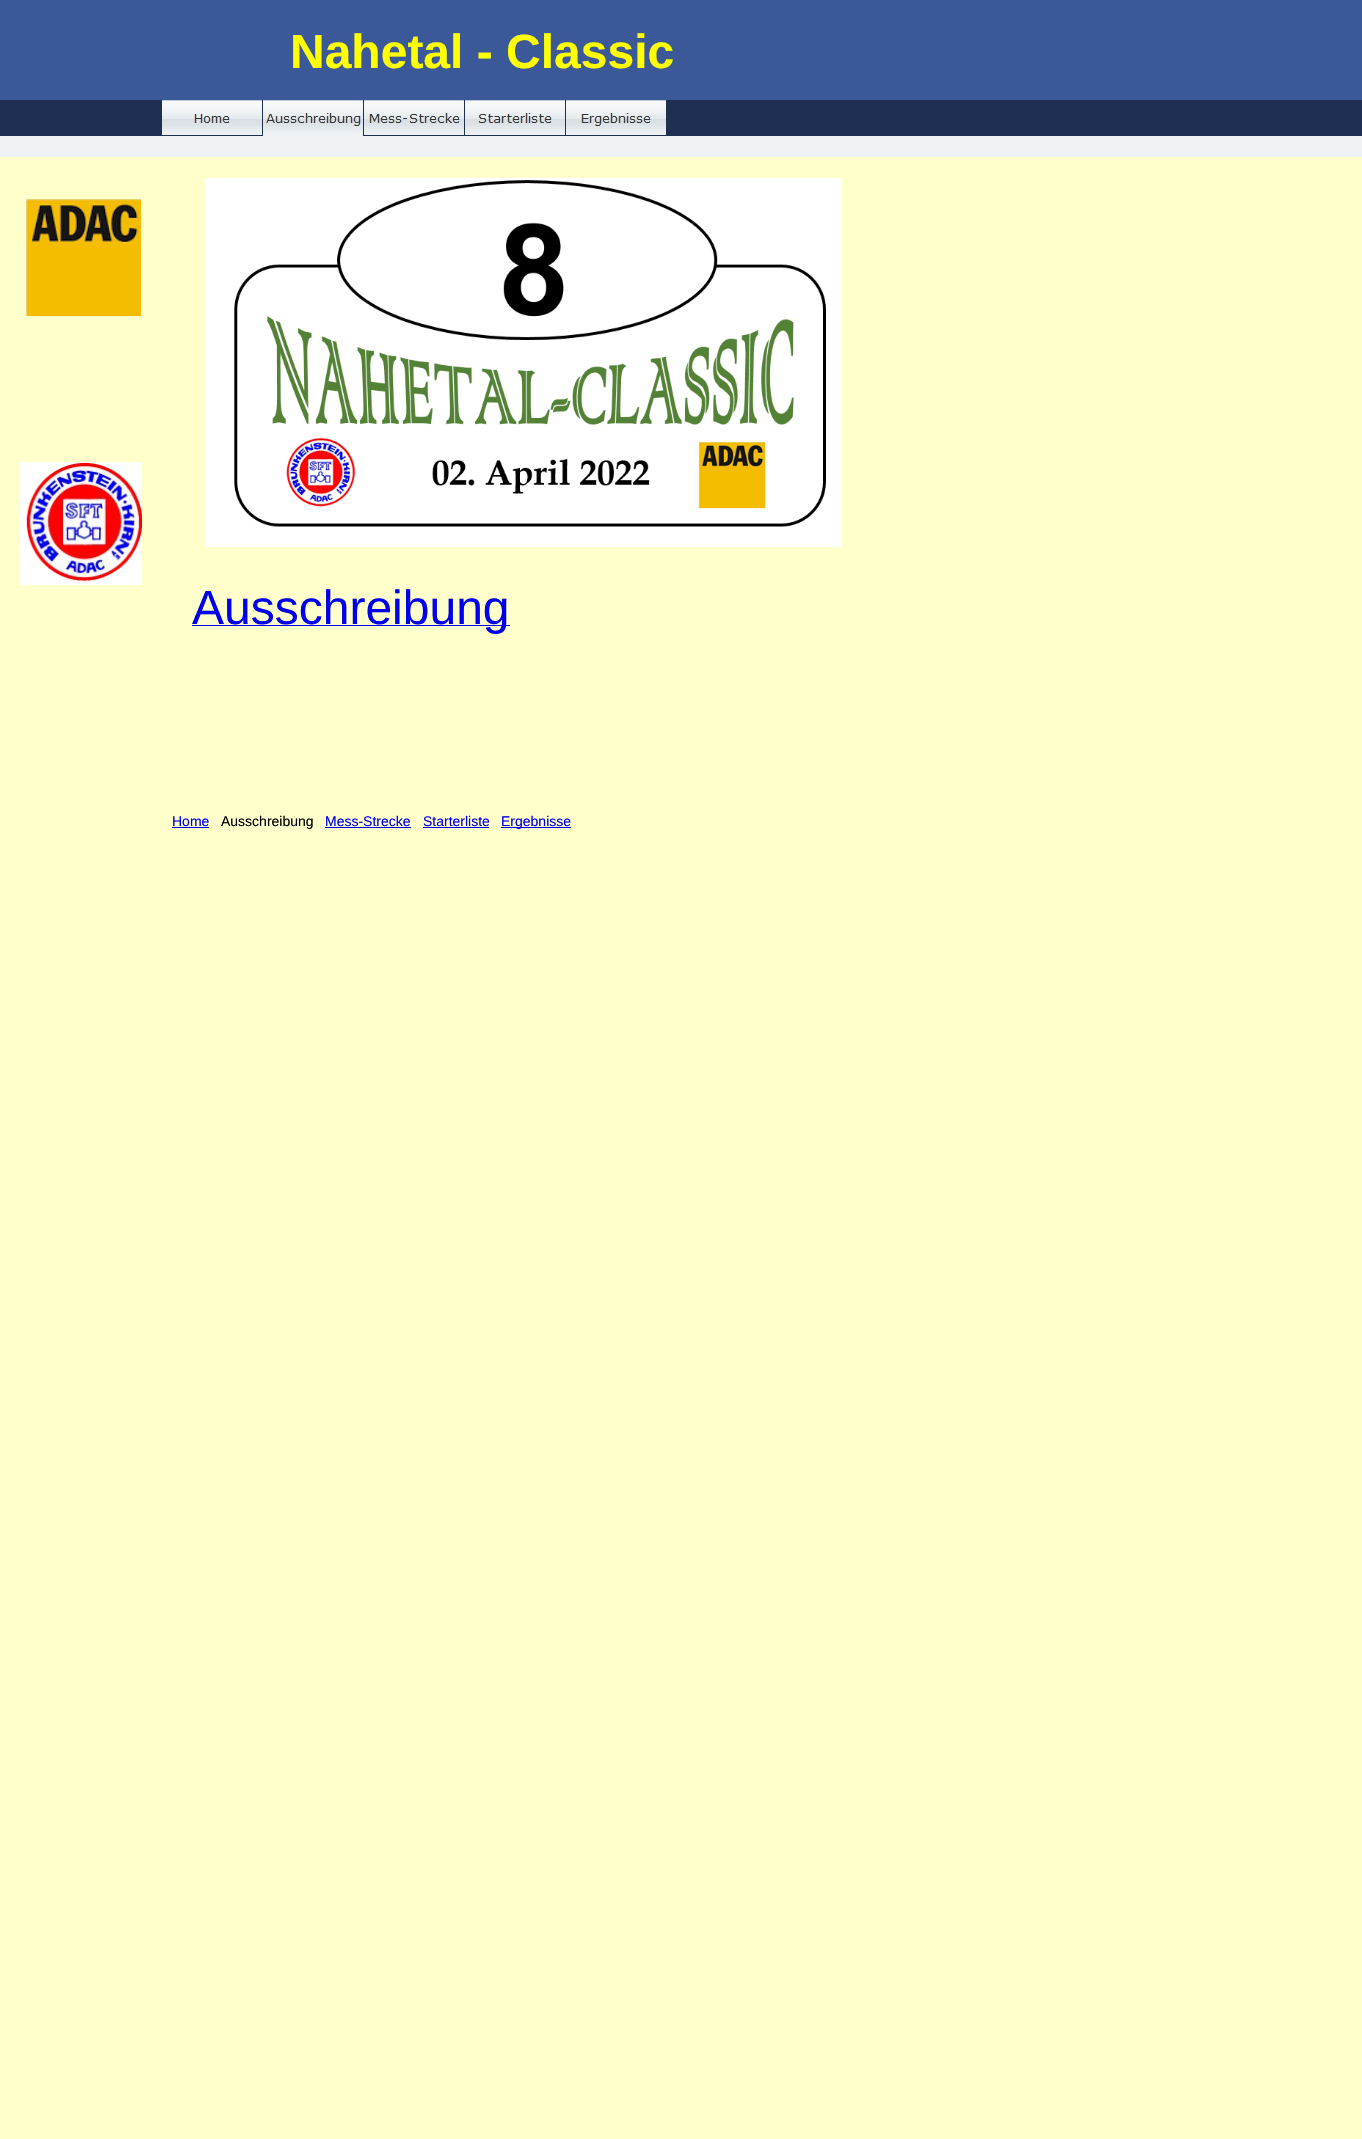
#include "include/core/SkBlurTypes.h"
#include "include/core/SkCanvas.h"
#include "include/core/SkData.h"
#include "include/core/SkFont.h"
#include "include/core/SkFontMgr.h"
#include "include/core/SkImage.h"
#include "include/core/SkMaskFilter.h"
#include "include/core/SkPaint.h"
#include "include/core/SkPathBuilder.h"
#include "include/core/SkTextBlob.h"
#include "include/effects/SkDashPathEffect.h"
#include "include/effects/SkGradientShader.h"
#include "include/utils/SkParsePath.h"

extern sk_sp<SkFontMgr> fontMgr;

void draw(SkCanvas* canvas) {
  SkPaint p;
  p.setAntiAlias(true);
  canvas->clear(SkColorSetRGB(255, 255, 204));
  canvas->drawImageRect(SkImages::DeferredFromEncodedData(SkData::MakeFromFileName("images/1.png")), SkRect::MakeLTRB(0, 0, 1362, 157), SkSamplingOptions());
  canvas->drawImageRect(SkImages::DeferredFromEncodedData(SkData::MakeFromFileName("images/2.png")), SkRect::MakeLTRB(26, 199, 141, 316), SkSamplingOptions());
  canvas->drawImageRect(SkImages::DeferredFromEncodedData(SkData::MakeFromFileName("images/3.png")), SkRect::MakeLTRB(20, 462, 142, 585), SkSamplingOptions());
  canvas->drawImageRect(SkImages::DeferredFromEncodedData(SkData::MakeFromFileName("images/4.png")), SkRect::MakeLTRB(162, 100, 263, 135), SkSamplingOptions());
  canvas->drawImageRect(SkImages::DeferredFromEncodedData(SkData::MakeFromFileName("images/5.png")), SkRect::MakeLTRB(263, 100, 364, 136), SkSamplingOptions());
  canvas->drawImageRect(SkImages::DeferredFromEncodedData(SkData::MakeFromFileName("images/6.png")), SkRect::MakeLTRB(364, 100, 465, 135), SkSamplingOptions());
  canvas->drawImageRect(SkImages::DeferredFromEncodedData(SkData::MakeFromFileName("images/7.png")), SkRect::MakeLTRB(465, 100, 566, 135), SkSamplingOptions());
  canvas->drawImageRect(SkImages::DeferredFromEncodedData(SkData::MakeFromFileName("images/8.png")), SkRect::MakeLTRB(566, 100, 667, 135), SkSamplingOptions());
  canvas->drawImageRect(SkImages::DeferredFromEncodedData(SkData::MakeFromFileName("images/9.png")), SkRect::MakeLTRB(205, 178, 842, 547), SkSamplingOptions());
  p.setColor(SkColorSetRGB(0, 0, 238));
  canvas->drawRect(SkRect::MakeLTRB(192, 625, 510, 626), p);
  canvas->drawRect(SkRect::MakeLTRB(172, 827, 209, 828), p);
  canvas->drawRect(SkRect::MakeLTRB(325, 827, 411, 828), p);
  canvas->drawRect(SkRect::MakeLTRB(423, 827, 489, 828), p);
  canvas->drawRect(SkRect::MakeLTRB(501, 827, 571, 828), p);
  SkFont font1(fontMgr->matchFamilyStyle("Liberation Sans", SkFontStyle::Bold()), 48);
  font1.setSubpixel(true);
  p.setColor(SkColorSetRGB(255, 255, 0));
  canvas->drawString("Nahetal - Classic", 290, 68, font1, p);
  SkFont font2(fontMgr->matchFamilyStyle("Liberation Sans", SkFontStyle::Normal()), 48);
  font2.setSubpixel(true);
  p.setColor(SkColorSetRGB(0, 0, 238));
  canvas->drawString("Ausschreibung", 192, 624, font2, p);
  SkFont font3(fontMgr->matchFamilyStyle("Liberation Sans", SkFontStyle::Normal()), 14);
  font3.setSubpixel(true);
  canvas->drawString("Home", 172, 826, font3, p);
  p.setColor(SK_ColorBLACK);
  canvas->drawString("Ausschreibung", 221, 826, font3, p);
  p.setColor(SkColorSetRGB(0, 0, 238));
  canvas->drawString("Mess-Strecke", 325, 826, font3, p);
  canvas->drawString("Starterliste", 423, 826, font3, p);
  canvas->drawString("Ergebnisse", 501, 826, font3, p);
}
